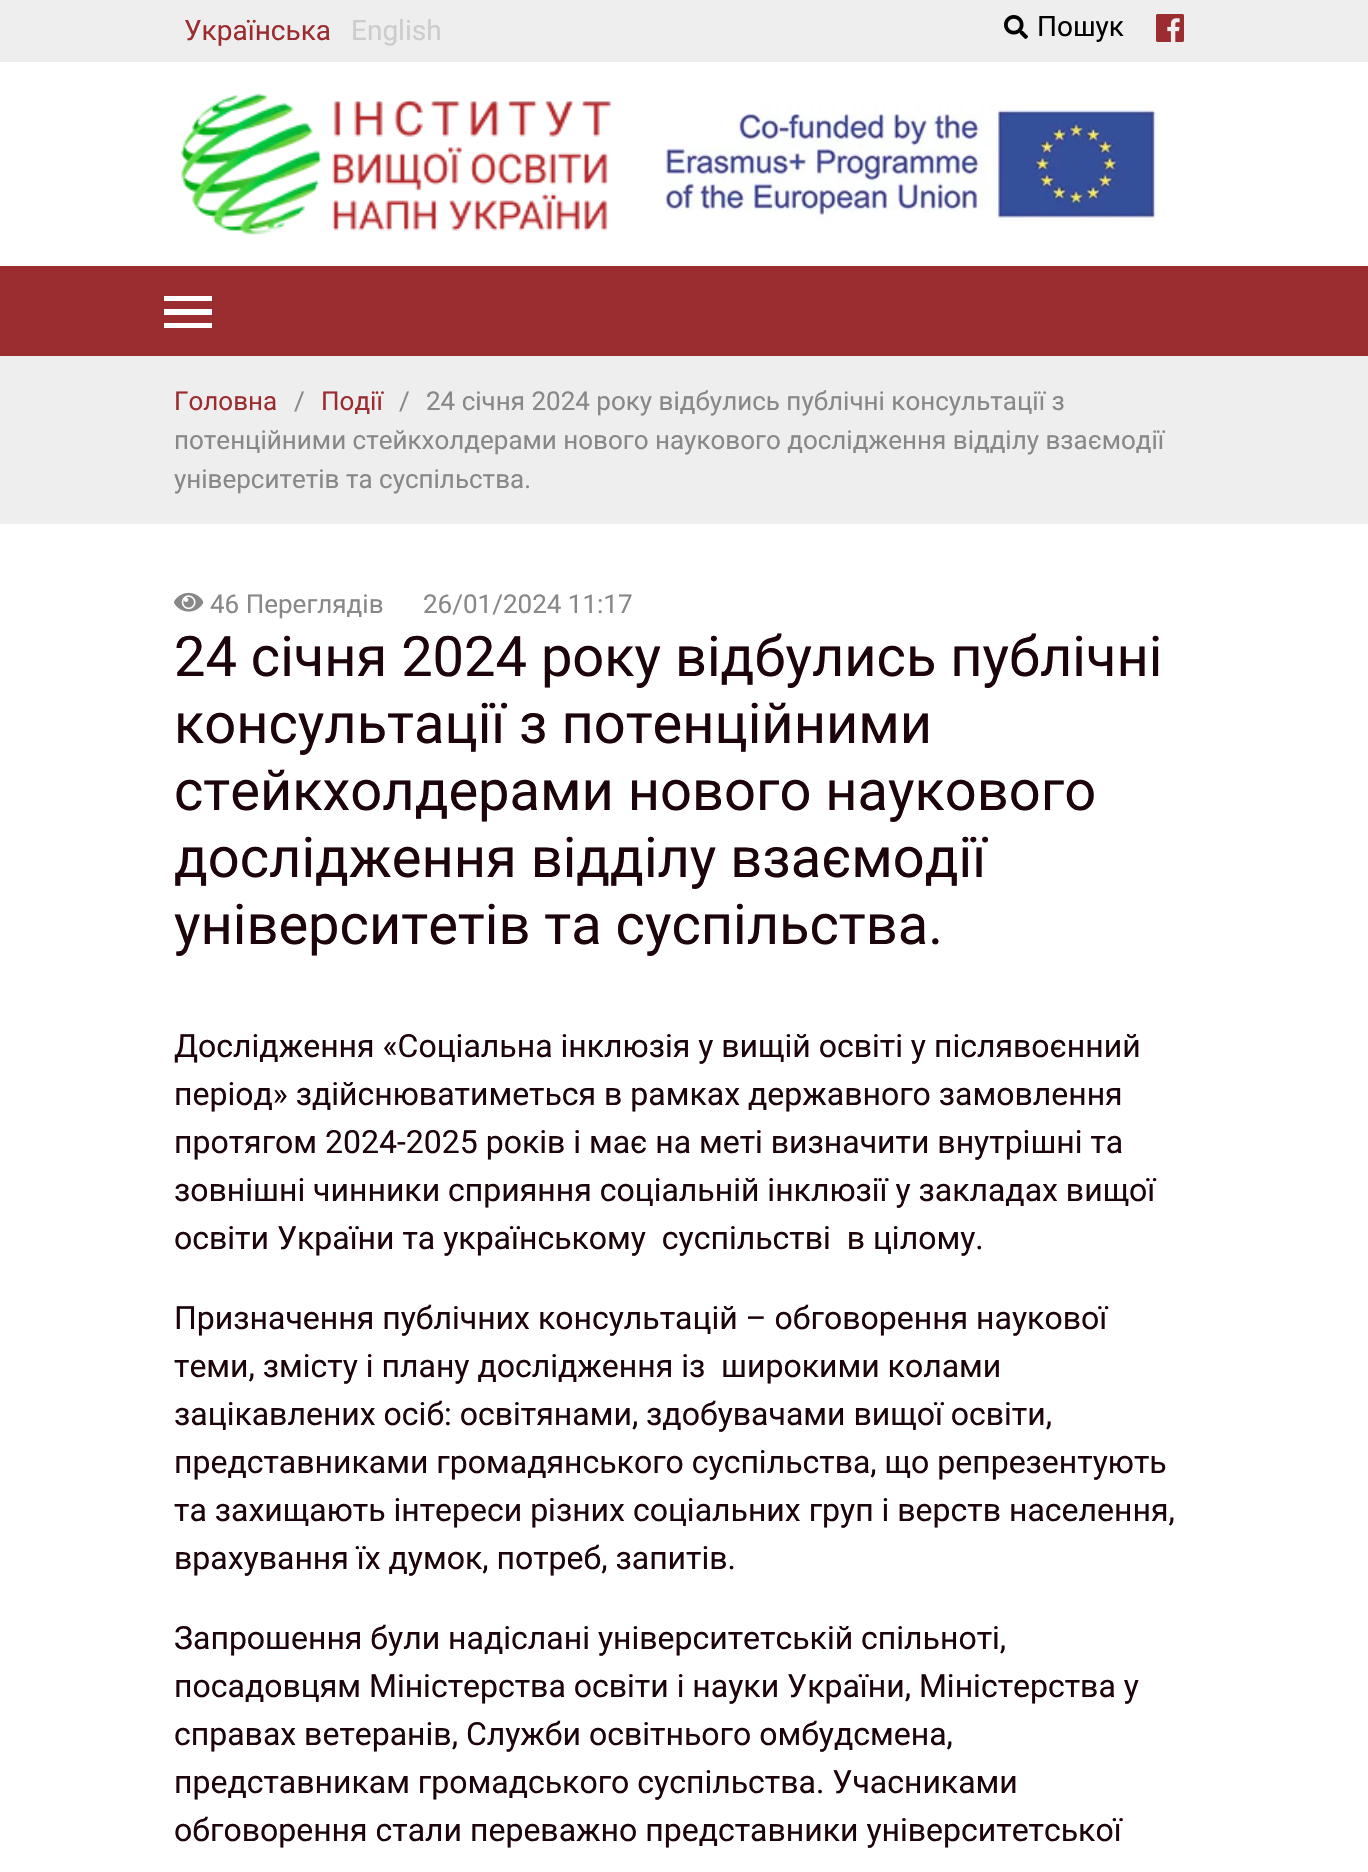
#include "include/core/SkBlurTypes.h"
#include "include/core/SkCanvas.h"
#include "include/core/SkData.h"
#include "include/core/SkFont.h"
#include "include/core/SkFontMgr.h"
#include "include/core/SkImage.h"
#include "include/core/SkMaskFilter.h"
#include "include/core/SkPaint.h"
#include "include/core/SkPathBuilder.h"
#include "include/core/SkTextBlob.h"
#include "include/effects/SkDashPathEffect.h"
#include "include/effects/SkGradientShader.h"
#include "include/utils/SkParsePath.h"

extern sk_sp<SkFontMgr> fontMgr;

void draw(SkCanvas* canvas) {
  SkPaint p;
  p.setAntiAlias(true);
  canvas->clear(SK_ColorWHITE);
  p.setColor(SkColorSetRGB(238, 238, 238));
  canvas->drawRect(SkRect::MakeLTRB(0, 0, 1368, 62), p);
  canvas->drawImageRect(SkImages::DeferredFromEncodedData(SkData::MakeFromFileName("images/1.png")), SkRect::MakeLTRB(1004, 15, 1028, 39), SkSamplingOptions());
  canvas->drawImageRect(SkImages::DeferredFromEncodedData(SkData::MakeFromFileName("images/2.png")), SkRect::MakeLTRB(1156, 14, 1184, 42), SkSamplingOptions());
  canvas->drawImageRect(SkImages::DeferredFromEncodedData(SkData::MakeFromFileName("images/3.png")), SkRect::MakeLTRB(181, 93, 611, 235), SkSamplingOptions());
  canvas->drawImageRect(SkImages::DeferredFromEncodedData(SkData::MakeFromFileName("images/4.png")), SkRect::MakeLTRB(665, 104, 1157, 222), SkSamplingOptions());
  p.setColor(SkColorSetRGB(155, 45, 48));
  canvas->drawRect(SkRect::MakeLTRB(0, 266, 1368, 356), p);
  p.setColor(SK_ColorWHITE);
  canvas->drawPath(SkPathBuilder().moveTo(164, 328).lineTo(212, 328).lineTo(212, 323).lineTo(164, 323).close().moveTo(164, 315).lineTo(212, 315).lineTo(212, 309).lineTo(164, 309).close().moveTo(164, 296).lineTo(164, 301).lineTo(212, 301).lineTo(212, 296).close().detach(), p);
  p.setColor(SkColorSetRGB(238, 238, 238));
  canvas->drawRect(SkRect::MakeLTRB(0, 356, 1368, 524), p);
  canvas->drawImageRect(SkImages::DeferredFromEncodedData(SkData::MakeFromFileName("images/5.png")), SkRect::MakeLTRB(174, 592, 204, 612), SkSamplingOptions());
  SkFont font1(fontMgr->matchFamilyStyle("Roboto", SkFontStyle::Normal()), 28);
  font1.setSubpixel(true);
  p.setColor(SkColorSetRGB(155, 45, 48));
  canvas->drawString("Українська", 184, 40, font1, p);
  p.setColor(SkColorSetRGB(204, 204, 204));
  canvas->drawString("English", 351, 40, font1, p);
  p.setColor(SK_ColorBLACK);
  canvas->drawString("Пошук", 1037, 36, font1, p);
  SkFont font2(fontMgr->matchFamilyStyle("Roboto", SkFontStyle::Normal()), 26);
  font2.setSubpixel(true);
  p.setColor(SkColorSetRGB(155, 45, 48));
  canvas->drawString("Головна", 174, 410, font2, p);
  p.setColor(SkColorSetRGB(136, 136, 136));
  canvas->drawString("/", 294, 410, font2, p);
  p.setColor(SkColorSetRGB(155, 45, 48));
  canvas->drawString("Події", 321, 410, font2, p);
  p.setColor(SkColorSetRGB(136, 136, 136));
  canvas->drawString("/", 399, 410, font2, p);
  canvas->drawString("24 січня 2024 року відбулись публічні консультації з", 426, 410, font2, p);
  canvas->drawString("потенційними стейкхолдерами нового наукового дослідження відділу взаємодії", 174, 449, font2, p);
  canvas->drawString("університетів та суспільства.", 174, 488, font2, p);
  canvas->drawString("46 Переглядів", 210, 613, font2, p);
  canvas->drawString("26/01/2024 11:17", 423, 613, font2, p);
  SkFont font3(fontMgr->matchFamilyStyle("Roboto", SkFontStyle::Normal()), 56);
  font3.setSubpixel(true);
  p.setColor(SkColorSetRGB(28, 4, 10));
  canvas->drawString("24 січня 2024 року відбулись публічні", 174, 676, font3, p);
  canvas->drawString("консультації з потенційними", 174, 743, font3, p);
  canvas->drawString("стейкхолдерами нового наукового", 174, 810, font3, p);
  canvas->drawString("дослідження відділу взаємодії", 174, 877, font3, p);
  canvas->drawString("університетів та суспільства.", 174, 944, font3, p);
  SkFont font4(fontMgr->matchFamilyStyle("Roboto", SkFontStyle::Normal()), 32);
  font4.setSubpixel(true);
  canvas->drawString("Дослідження «Соціальна інклюзія у вищій освіті у післявоєнний", 174, 1057, font4, p);
  canvas->drawString("період» здійснюватиметься в рамках державного замовлення", 174, 1105, font4, p);
  canvas->drawString("протягом 2024-2025 років і має на меті визначити внутрішні та", 174, 1153, font4, p);
  canvas->drawString("зовнішні чинники сприяння соціальній інклюзії у закладах вищої", 174, 1201, font4, p);
  canvas->drawString("освіти України та українському  суспільстві  в цілому.", 174, 1249, font4, p);
  canvas->drawString("Призначення публічних консультацій – обговорення наукової", 174, 1329, font4, p);
  canvas->drawString("теми, змісту і плану дослідження із  широкими колами", 174, 1377, font4, p);
  canvas->drawString("зацікавлених осіб: освітянами, здобувачами вищої освіти,", 174, 1425, font4, p);
  canvas->drawString("представниками громадянського суспільства, що репрезентують", 174, 1473, font4, p);
  canvas->drawString("та захищають інтереси різних соціальних груп і верств населення,", 174, 1521, font4, p);
  canvas->drawString("врахування їх думок, потреб, запитів.", 174, 1569, font4, p);
  canvas->drawString("Запрошення були надіслані університетській спільноті,", 174, 1649, font4, p);
  canvas->drawString("посадовцям Міністерства освіти і науки України, Міністерства у", 174, 1697, font4, p);
  canvas->drawString("справах ветеранів, Служби освітнього омбудсмена,", 174, 1745, font4, p);
  canvas->drawString("представникам громадського суспільства. Учасниками", 174, 1793, font4, p);
  canvas->drawString("обговорення стали переважно представники університетської", 174, 1841, font4, p);
}
